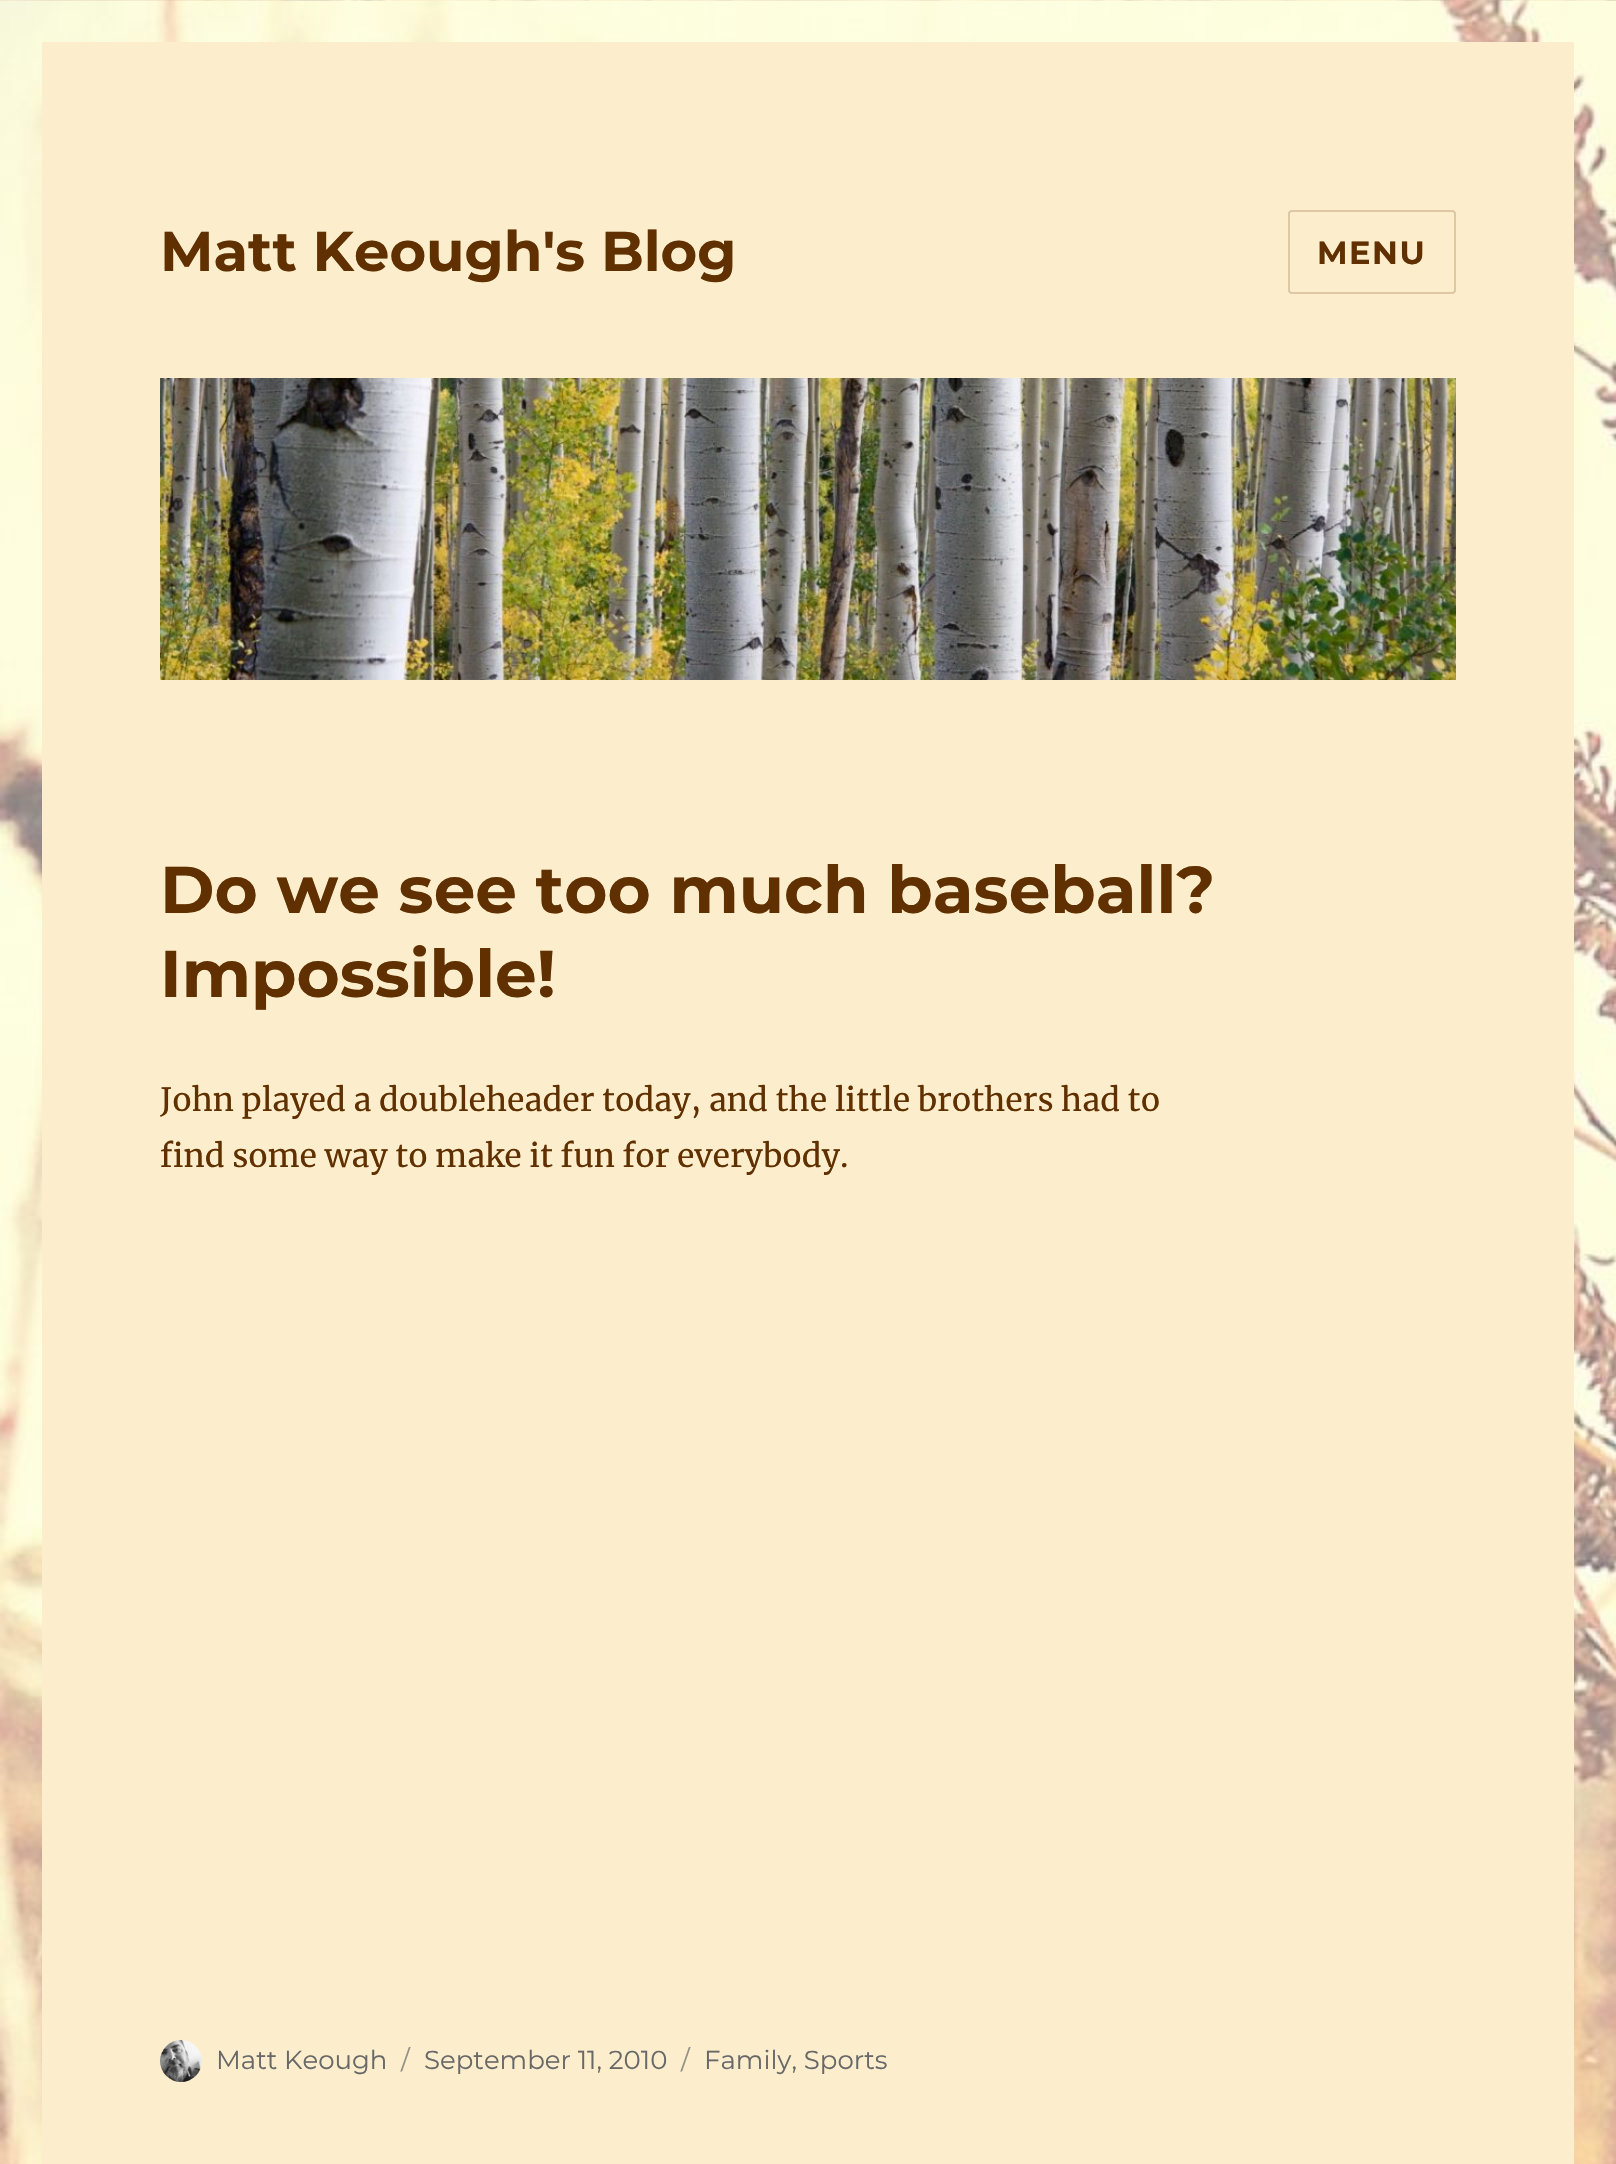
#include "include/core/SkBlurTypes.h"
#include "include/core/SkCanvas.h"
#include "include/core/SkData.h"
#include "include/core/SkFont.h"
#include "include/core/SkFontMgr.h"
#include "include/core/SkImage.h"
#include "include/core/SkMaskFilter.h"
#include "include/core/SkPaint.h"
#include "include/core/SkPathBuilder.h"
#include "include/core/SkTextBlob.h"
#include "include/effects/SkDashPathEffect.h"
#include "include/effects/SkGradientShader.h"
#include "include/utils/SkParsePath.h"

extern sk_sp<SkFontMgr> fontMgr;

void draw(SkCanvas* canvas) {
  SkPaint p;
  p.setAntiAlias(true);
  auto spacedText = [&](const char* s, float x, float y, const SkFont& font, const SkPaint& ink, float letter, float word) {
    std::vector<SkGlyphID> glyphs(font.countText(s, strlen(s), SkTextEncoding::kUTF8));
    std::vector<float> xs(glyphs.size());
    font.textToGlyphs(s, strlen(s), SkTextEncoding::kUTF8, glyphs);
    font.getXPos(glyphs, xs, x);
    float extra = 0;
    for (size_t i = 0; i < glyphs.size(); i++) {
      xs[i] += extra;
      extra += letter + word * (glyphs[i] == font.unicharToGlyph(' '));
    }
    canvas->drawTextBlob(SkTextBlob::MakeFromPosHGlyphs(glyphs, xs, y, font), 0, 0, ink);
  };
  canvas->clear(SK_ColorWHITE);
  canvas->drawImageRect(SkImages::DeferredFromEncodedData(SkData::MakeFromFileName("images/1.png")), SkRect::MakeLTRB(0, 0, 1616, 2164), SkSamplingOptions());
  p.setColor(SkColorSetRGB(252, 238, 204));
  canvas->drawRect(SkRect::MakeLTRB(42, 42, 1574, 2164), p);
  p.setStyle(SkPaint::kStroke_Style);
  p.setStrokeWidth(2);
  p.setColor(SkColorSetRGB(221, 200, 163));
  canvas->drawRoundRect(SkRect::MakeLTRB(1289, 211, 1455, 293), 3, 3, p);
  canvas->drawImageRect(SkImages::DeferredFromEncodedData(SkData::MakeFromFileName("images/2.png")), SkRect::MakeLTRB(160, 378, 1456, 680), SkSamplingOptions());
  canvas->drawImageRect(SkImages::DeferredFromEncodedData(SkData::MakeFromFileName("images/3.png")), SkRect::MakeLTRB(160, 2040, 202, 2082), SkSamplingOptions());
  SkFont font1(fontMgr->matchFamilyStyle("Montserrat", SkFontStyle(100, SkFontStyle::kNormal_Width, SkFontStyle::kUpright_Slant)), 56);
  font1.setSubpixel(true);
  p.setStyle(SkPaint::kFill_Style);
  p.setColor(SkColorSetRGB(96, 48, 0));
  canvas->drawString("Matt Keough's Blog", 160, 271, font1, p);
  SkFont font2(fontMgr->matchFamilyStyle("Montserrat", SkFontStyle(100, SkFontStyle::kNormal_Width, SkFontStyle::kUpright_Slant)), 32);
  font2.setSubpixel(true);
  spacedText("MENU", 1317, 264, font2, p, 1.5f, 0);
  SkFont font3(fontMgr->matchFamilyStyle("Montserrat", SkFontStyle(100, SkFontStyle::kNormal_Width, SkFontStyle::kUpright_Slant)), 66);
  font3.setSubpixel(true);
  canvas->drawString("Do we see too much baseball?", 160, 913, font3, p);
  canvas->drawString("Impossible!", 160, 997, font3, p);
  SkFont font4(fontMgr->matchFamilyStyle("Merriweather", SkFontStyle::Normal()), 32);
  font4.setSubpixel(true);
  canvas->drawString("John played a doubleheader today, and the little brothers had to", 160, 1111, font4, p);
  canvas->drawString("find some way to make it fun for everybody.", 160, 1167, font4, p);
  SkFont font5(fontMgr->matchFamilyStyle("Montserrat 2", SkFontStyle(100, SkFontStyle::kNormal_Width, SkFontStyle::kUpright_Slant)), 26);
  font5.setSubpixel(true);
  p.setColor(SkColorSetRGB(104, 104, 104));
  canvas->drawString("Matt Keough", 216, 2069, font5, p);
  p.setColor(SkColorSetRGB(148, 144, 134));
  canvas->drawString("/", 401, 2069, font5, p);
  p.setColor(SkColorSetRGB(104, 104, 104));
  canvas->drawString("September 11, 2010", 424, 2069, font5, p);
  p.setColor(SkColorSetRGB(148, 144, 134));
  canvas->drawString("/", 681, 2069, font5, p);
  p.setColor(SkColorSetRGB(104, 104, 104));
  canvas->drawString("Family, Sports", 704, 2069, font5, p);
}
